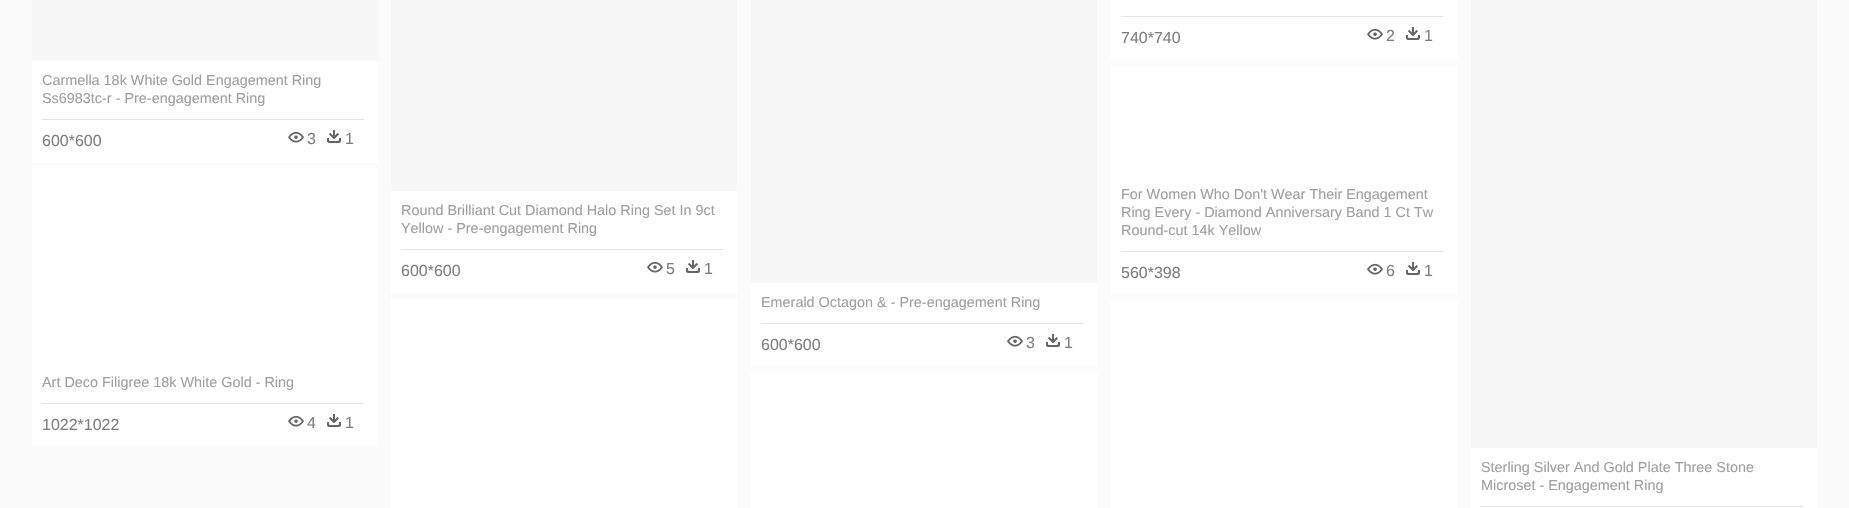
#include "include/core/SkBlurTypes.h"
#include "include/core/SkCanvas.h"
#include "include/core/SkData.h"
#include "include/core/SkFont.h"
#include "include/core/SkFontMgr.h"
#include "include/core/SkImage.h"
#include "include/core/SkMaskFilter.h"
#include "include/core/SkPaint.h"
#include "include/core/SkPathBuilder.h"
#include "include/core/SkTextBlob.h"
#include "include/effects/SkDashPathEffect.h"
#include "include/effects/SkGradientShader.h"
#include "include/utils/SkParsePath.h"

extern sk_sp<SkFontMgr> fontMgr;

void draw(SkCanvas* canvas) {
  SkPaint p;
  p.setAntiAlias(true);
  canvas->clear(SkColorSetRGB(251, 251, 251));
  p.setColor(SK_ColorWHITE);
  canvas->drawRect(SkRect::MakeLTRB(1111, 0, 1457, 60), p);
  p.setColor(SkColorSetRGB(228, 228, 228));
  canvas->drawRect(SkRect::MakeLTRB(1121, 16, 1443, 17), p);
  canvas->drawImageRect(SkImages::DeferredFromEncodedData(SkData::MakeFromFileName("images/1.png")), SkRect::MakeLTRB(1367, 28, 1383, 40), SkSamplingOptions());
  canvas->drawImageRect(SkImages::DeferredFromEncodedData(SkData::MakeFromFileName("images/2.png")), SkRect::MakeLTRB(1406, 27, 1420, 40), SkSamplingOptions());
  p.setColor(SK_ColorWHITE);
  canvas->drawRect(SkRect::MakeLTRB(32, 61, 378, 163), p);
  p.setColor(SkColorSetRGB(247, 247, 247));
  canvas->drawRect(SkRect::MakeLTRB(32, 0, 378, 61), p);
  p.setColor(SkColorSetRGB(228, 228, 228));
  canvas->drawRect(SkRect::MakeLTRB(42, 119, 364, 120), p);
  canvas->drawImageRect(SkImages::DeferredFromEncodedData(SkData::MakeFromFileName("images/1.png")), SkRect::MakeLTRB(288, 131, 304, 143), SkSamplingOptions());
  canvas->drawImageRect(SkImages::DeferredFromEncodedData(SkData::MakeFromFileName("images/2.png")), SkRect::MakeLTRB(327, 130, 341, 143), SkSamplingOptions());
  p.setColor(SK_ColorWHITE);
  canvas->drawRect(SkRect::MakeLTRB(391, 191, 737, 293), p);
  p.setColor(SkColorSetRGB(247, 247, 247));
  canvas->drawRect(SkRect::MakeLTRB(391, 0, 737, 191), p);
  p.setColor(SkColorSetRGB(228, 228, 228));
  canvas->drawRect(SkRect::MakeLTRB(401, 249, 723, 250), p);
  canvas->drawImageRect(SkImages::DeferredFromEncodedData(SkData::MakeFromFileName("images/1.png")), SkRect::MakeLTRB(647, 261, 663, 273), SkSamplingOptions());
  canvas->drawImageRect(SkImages::DeferredFromEncodedData(SkData::MakeFromFileName("images/2.png")), SkRect::MakeLTRB(686, 260, 700, 273), SkSamplingOptions());
  p.setColor(SK_ColorWHITE);
  canvas->drawRect(SkRect::MakeLTRB(1111, 65, 1457, 295), p);
  p.setColor(SkColorSetRGB(228, 228, 228));
  canvas->drawRect(SkRect::MakeLTRB(1121, 251, 1443, 252), p);
  canvas->drawImageRect(SkImages::DeferredFromEncodedData(SkData::MakeFromFileName("images/1.png")), SkRect::MakeLTRB(1367, 263, 1383, 275), SkSamplingOptions());
  canvas->drawImageRect(SkImages::DeferredFromEncodedData(SkData::MakeFromFileName("images/2.png")), SkRect::MakeLTRB(1406, 262, 1420, 275), SkSamplingOptions());
  p.setColor(SK_ColorWHITE);
  canvas->drawRect(SkRect::MakeLTRB(391, 299, 737, 508), p);
  canvas->drawRect(SkRect::MakeLTRB(751, 283, 1097, 367), p);
  p.setColor(SkColorSetRGB(247, 247, 247));
  canvas->drawRect(SkRect::MakeLTRB(751, 0, 1097, 283), p);
  p.setColor(SkColorSetRGB(228, 228, 228));
  canvas->drawRect(SkRect::MakeLTRB(761, 323, 1083, 324), p);
  canvas->drawImageRect(SkImages::DeferredFromEncodedData(SkData::MakeFromFileName("images/1.png")), SkRect::MakeLTRB(1007, 335, 1023, 347), SkSamplingOptions());
  canvas->drawImageRect(SkImages::DeferredFromEncodedData(SkData::MakeFromFileName("images/2.png")), SkRect::MakeLTRB(1046, 334, 1060, 347), SkSamplingOptions());
  p.setColor(SK_ColorWHITE);
  canvas->drawRect(SkRect::MakeLTRB(1111, 300, 1457, 508), p);
  canvas->drawRect(SkRect::MakeLTRB(32, 168, 378, 447), p);
  p.setColor(SkColorSetRGB(228, 228, 228));
  canvas->drawRect(SkRect::MakeLTRB(42, 403, 364, 404), p);
  canvas->drawImageRect(SkImages::DeferredFromEncodedData(SkData::MakeFromFileName("images/1.png")), SkRect::MakeLTRB(288, 415, 304, 427), SkSamplingOptions());
  canvas->drawImageRect(SkImages::DeferredFromEncodedData(SkData::MakeFromFileName("images/2.png")), SkRect::MakeLTRB(327, 414, 341, 427), SkSamplingOptions());
  p.setColor(SK_ColorWHITE);
  canvas->drawRect(SkRect::MakeLTRB(751, 372, 1097, 508), p);
  canvas->drawRect(SkRect::MakeLTRB(1471, 448, 1817, 508), p);
  p.setColor(SkColorSetRGB(247, 247, 247));
  canvas->drawRect(SkRect::MakeLTRB(1471, 0, 1817, 448), p);
  p.setColor(SkColorSetRGB(228, 228, 228));
  canvas->drawRect(SkRect::MakeLTRB(1481, 506, 1803, 507), p);
  SkFont font1(fontMgr->matchFamilyStyle("Liberation Sans", SkFontStyle::Normal()), 16);
  font1.setSubpixel(true);
  p.setColor(SkColorSetRGB(126, 126, 126));
  canvas->drawString("740*740", 1121, 43, font1, p);
  canvas->drawString("2", 1386, 41, font1, p);
  canvas->drawString("1", 1424, 41, font1, p);
  SkFont font2(fontMgr->matchFamilyStyle("Liberation Sans", SkFontStyle::Normal()), 14.4f);
  font2.setSubpixel(true);
  p.setColor(SkColorSetRGB(162, 158, 159));
  canvas->drawString("Carmella 18k White Gold Engagement Ring", 42, 85, font2, p);
  canvas->drawString("Ss6983tc-r - Pre-engagement Ring", 42, 103, font2, p);
  p.setColor(SkColorSetRGB(126, 126, 126));
  canvas->drawString("600*600", 42, 146, font1, p);
  canvas->drawString("3", 307, 144, font1, p);
  canvas->drawString("1", 345, 144, font1, p);
  p.setColor(SkColorSetRGB(162, 158, 159));
  canvas->drawString("Round Brilliant Cut Diamond Halo Ring Set In 9ct", 401, 215, font2, p);
  canvas->drawString("Yellow - Pre-engagement Ring", 401, 233, font2, p);
  p.setColor(SkColorSetRGB(126, 126, 126));
  canvas->drawString("600*600", 401, 276, font1, p);
  canvas->drawString("5", 666, 274, font1, p);
  canvas->drawString("1", 704, 274, font1, p);
  p.setColor(SkColorSetRGB(162, 158, 159));
  canvas->drawString("For Women Who Don't Wear Their Engagement", 1121, 199, font2, p);
  canvas->drawString("Ring Every - Diamond Anniversary Band 1 Ct Tw", 1121, 217, font2, p);
  canvas->drawString("Round-cut 14k Yellow", 1121, 235, font2, p);
  p.setColor(SkColorSetRGB(126, 126, 126));
  canvas->drawString("560*398", 1121, 278, font1, p);
  canvas->drawString("6", 1386, 276, font1, p);
  canvas->drawString("1", 1424, 276, font1, p);
  p.setColor(SkColorSetRGB(162, 158, 159));
  canvas->drawString("Emerald Octagon & - Pre-engagement Ring", 761, 307, font2, p);
  p.setColor(SkColorSetRGB(126, 126, 126));
  canvas->drawString("600*600", 761, 350, font1, p);
  canvas->drawString("3", 1026, 348, font1, p);
  canvas->drawString("1", 1064, 348, font1, p);
  p.setColor(SkColorSetRGB(162, 158, 159));
  canvas->drawString("Art Deco Filigree 18k White Gold - Ring", 42, 387, font2, p);
  p.setColor(SkColorSetRGB(126, 126, 126));
  canvas->drawString("1022*1022", 42, 430, font1, p);
  canvas->drawString("4", 307, 428, font1, p);
  canvas->drawString("1", 345, 428, font1, p);
  p.setColor(SkColorSetRGB(162, 158, 159));
  canvas->drawString("Sterling Silver And Gold Plate Three Stone", 1481, 472, font2, p);
  canvas->drawString("Microset - Engagement Ring", 1481, 490, font2, p);
}
